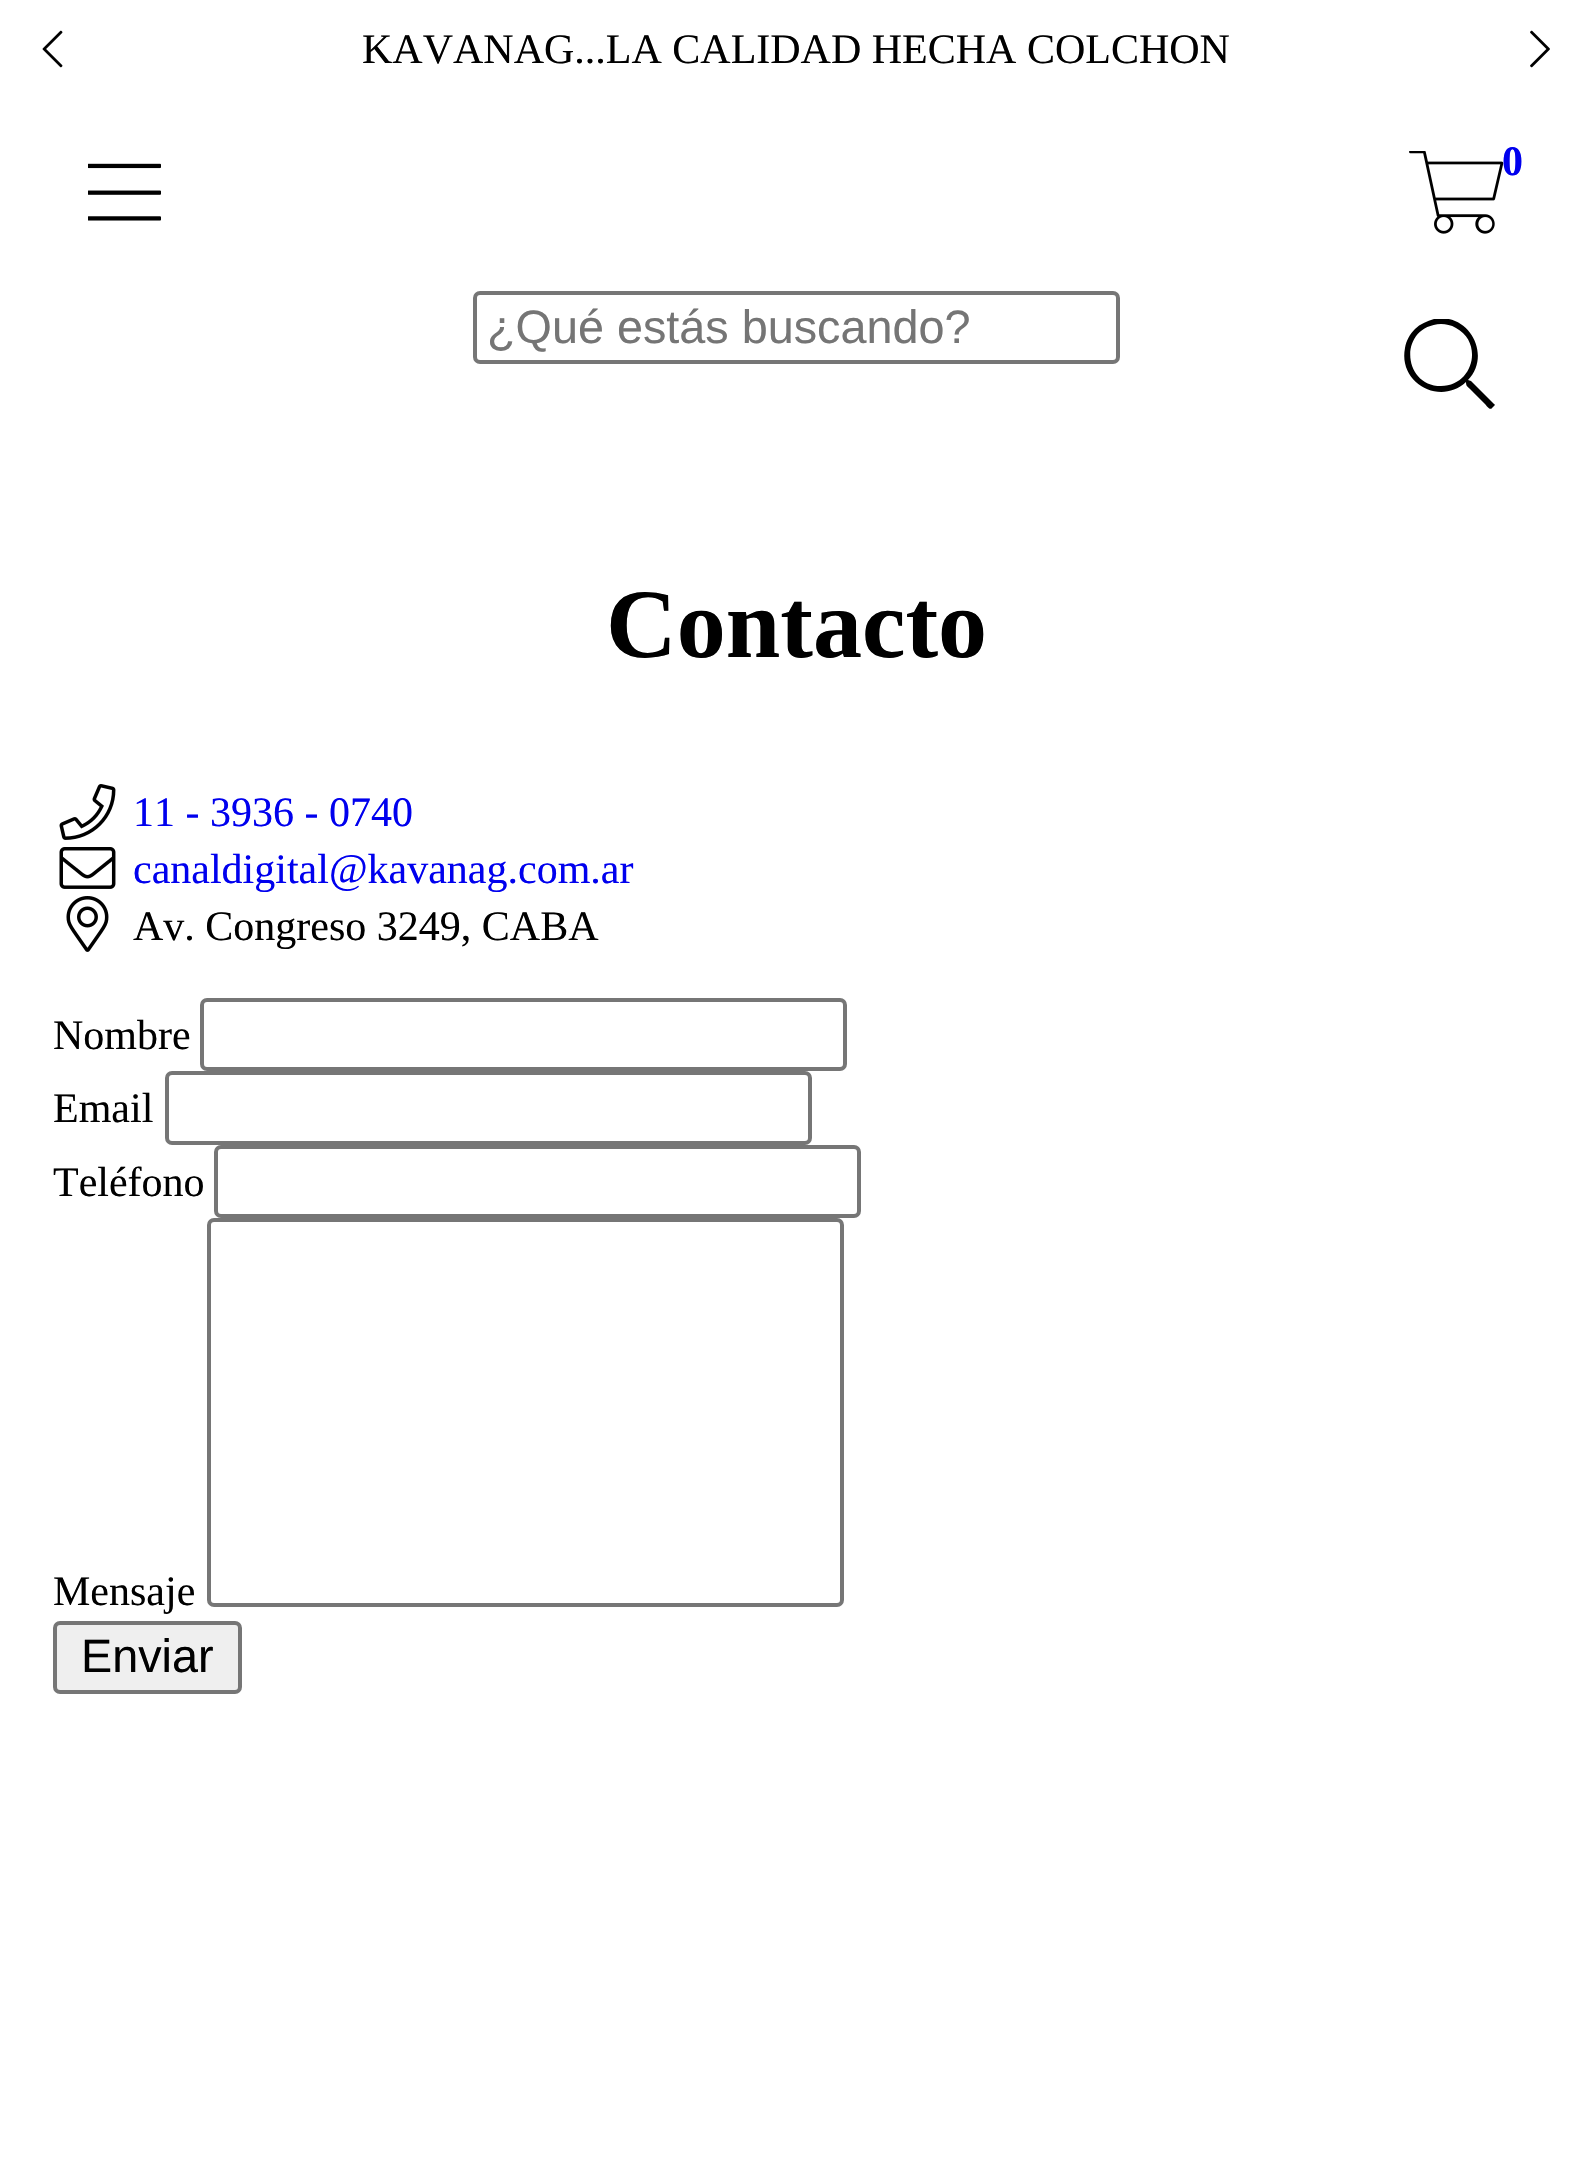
#include "include/core/SkBlurTypes.h"
#include "include/core/SkCanvas.h"
#include "include/core/SkData.h"
#include "include/core/SkFont.h"
#include "include/core/SkFontMgr.h"
#include "include/core/SkImage.h"
#include "include/core/SkMaskFilter.h"
#include "include/core/SkPaint.h"
#include "include/core/SkPathBuilder.h"
#include "include/core/SkTextBlob.h"
#include "include/effects/SkDashPathEffect.h"
#include "include/effects/SkGradientShader.h"
#include "include/utils/SkParsePath.h"

extern sk_sp<SkFontMgr> fontMgr;

void draw(SkCanvas* canvas) {
  SkPaint p;
  p.setAntiAlias(true);
  canvas->clear(SK_ColorWHITE);
  canvas->drawImageRect(SkImages::DeferredFromEncodedData(SkData::MakeFromFileName("images/1.png")), SkRect::MakeLTRB(42, 30, 63, 68), SkSamplingOptions());
  canvas->drawImageRect(SkImages::DeferredFromEncodedData(SkData::MakeFromFileName("images/2.png")), SkRect::MakeLTRB(1530, 30, 1550, 68), SkSamplingOptions());
  canvas->drawImageRect(SkImages::DeferredFromEncodedData(SkData::MakeFromFileName("images/3.png")), SkRect::MakeLTRB(88, 163, 161, 221), SkSamplingOptions());
  canvas->drawImageRect(SkImages::DeferredFromEncodedData(SkData::MakeFromFileName("images/4.png")), SkRect::MakeLTRB(1409, 151, 1504, 234), SkSamplingOptions());
  p.setStyle(SkPaint::kStroke_Style);
  p.setStrokeWidth(4);
  p.setColor(SkColorSetRGB(118, 118, 118));
  canvas->drawRoundRect(SkRect::MakeLTRB(475, 293, 1118, 362), 5, 5, p);
  canvas->save();
  canvas->clipRect(SkRect::MakeLTRB(1404, 319, 1497, 412));
  p.setStyle(SkPaint::kFill_Style);
  p.setColor(SK_ColorBLACK);
  canvas->drawPath(SkPathBuilder().moveTo(1494, 404).lineTo(1471, 381).lineTo(1468, 380).cubicTo(1492, 355, 1469, 312, 1434, 319).cubicTo(1427, 321, 1420, 324, 1415, 329).cubicTo(1410, 334, 1406, 341, 1405, 348).cubicTo(1398, 383, 1440, 406, 1466, 382).cubicTo(1466, 386, 1467, 386, 1470, 389).lineTo(1485, 404).cubicTo(1486, 405, 1490, 411, 1492, 408).lineTo(1494, 406).cubicTo(1495, 405, 1495, 404, 1494, 404).close().moveTo(1441, 386).cubicTo(1402, 386, 1398, 326, 1441, 324).cubicTo(1446, 324, 1451, 325, 1456, 328).cubicTo(1484, 343, 1473, 386, 1441, 386).close().detach(), p);
  canvas->restore();
  canvas->drawImageRect(SkImages::DeferredFromEncodedData(SkData::MakeFromFileName("images/5.png")), SkRect::MakeLTRB(59, 784, 116, 840), SkSamplingOptions());
  canvas->drawImageRect(SkImages::DeferredFromEncodedData(SkData::MakeFromFileName("images/6.png")), SkRect::MakeLTRB(59, 847, 116, 889), SkSamplingOptions());
  canvas->drawImageRect(SkImages::DeferredFromEncodedData(SkData::MakeFromFileName("images/7.png")), SkRect::MakeLTRB(66, 896, 109, 952), SkSamplingOptions());
  p.setStyle(SkPaint::kStroke_Style);
  p.setColor(SkColorSetRGB(118, 118, 118));
  canvas->drawRoundRect(SkRect::MakeLTRB(202, 1000, 845, 1069), 5, 5, p);
  canvas->drawRoundRect(SkRect::MakeLTRB(167, 1073, 810, 1143), 5, 5, p);
  canvas->drawRoundRect(SkRect::MakeLTRB(216, 1147, 859, 1216), 5, 5, p);
  canvas->drawRoundRect(SkRect::MakeLTRB(209, 1220, 842, 1605), 5, 5, p);
  p.setStyle(SkPaint::kFill_Style);
  p.setColor(SkColorSetRGB(239, 239, 239));
  canvas->drawRoundRect(SkRect::MakeLTRB(55, 1623, 240, 1692), 5, 5, p);
  p.setStyle(SkPaint::kStroke_Style);
  p.setColor(SkColorSetRGB(118, 118, 118));
  canvas->drawRoundRect(SkRect::MakeLTRB(55, 1623, 240, 1692), 5, 5, p);
  SkFont font1(fontMgr->matchFamilyStyle("Liberation Serif", SkFontStyle::Normal()), 42);
  font1.setSubpixel(true);
  p.setStyle(SkPaint::kFill_Style);
  p.setColor(SK_ColorBLACK);
  canvas->drawString("KAVANAG...LA CALIDAD HECHA COLCHON", 362, 63, font1, p);
  SkFont font2(fontMgr->matchFamilyStyle("Liberation Serif", SkFontStyle::Bold()), 42);
  font2.setSubpixel(true);
  p.setColor(SkColorSetRGB(0, 0, 238));
  canvas->drawString("0", 1502, 175, font2, p);
  SkFont font3(fontMgr->matchFamilyStyle("Liberation Sans", SkFontStyle::Normal()), 46.75f);
  font3.setSubpixel(true);
  p.setColor(SkColorSetRGB(117, 117, 117));
  canvas->drawString("¿Qué estás buscando?", 487, 343, font3, p);
  SkFont font4(fontMgr->matchFamilyStyle("Liberation Serif", SkFontStyle::Bold()), 98);
  font4.setSubpixel(true);
  p.setColor(SK_ColorBLACK);
  canvas->drawString("Contacto", 606, 657, font4, p);
  p.setColor(SkColorSetRGB(0, 0, 238));
  canvas->drawString("11 - 3936 - 0740", 133, 826, font1, p);
  canvas->drawString("canaldigital@kavanag.com.ar", 133, 883, font1, p);
  p.setColor(SK_ColorBLACK);
  canvas->drawString("Av. Congreso 3249, CABA", 133, 940, font1, p);
  canvas->drawString("Nombre", 53, 1049, font1, p);
  canvas->drawString("Email", 53, 1122, font1, p);
  canvas->drawString("Teléfono", 53, 1196, font1, p);
  canvas->drawString("Mensaje", 53, 1605, font1, p);
  canvas->drawString("Enviar", 81, 1672, font3, p);
}
